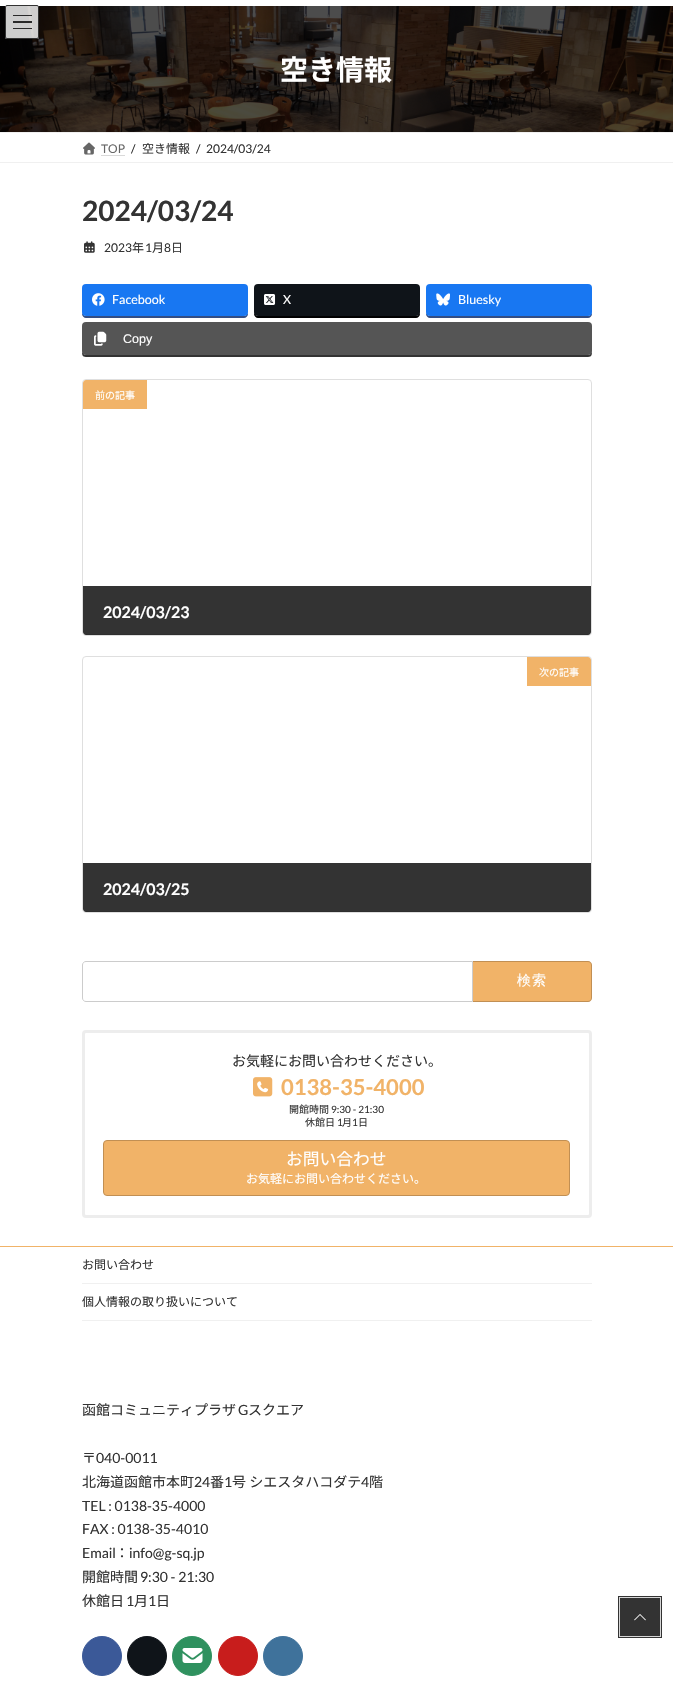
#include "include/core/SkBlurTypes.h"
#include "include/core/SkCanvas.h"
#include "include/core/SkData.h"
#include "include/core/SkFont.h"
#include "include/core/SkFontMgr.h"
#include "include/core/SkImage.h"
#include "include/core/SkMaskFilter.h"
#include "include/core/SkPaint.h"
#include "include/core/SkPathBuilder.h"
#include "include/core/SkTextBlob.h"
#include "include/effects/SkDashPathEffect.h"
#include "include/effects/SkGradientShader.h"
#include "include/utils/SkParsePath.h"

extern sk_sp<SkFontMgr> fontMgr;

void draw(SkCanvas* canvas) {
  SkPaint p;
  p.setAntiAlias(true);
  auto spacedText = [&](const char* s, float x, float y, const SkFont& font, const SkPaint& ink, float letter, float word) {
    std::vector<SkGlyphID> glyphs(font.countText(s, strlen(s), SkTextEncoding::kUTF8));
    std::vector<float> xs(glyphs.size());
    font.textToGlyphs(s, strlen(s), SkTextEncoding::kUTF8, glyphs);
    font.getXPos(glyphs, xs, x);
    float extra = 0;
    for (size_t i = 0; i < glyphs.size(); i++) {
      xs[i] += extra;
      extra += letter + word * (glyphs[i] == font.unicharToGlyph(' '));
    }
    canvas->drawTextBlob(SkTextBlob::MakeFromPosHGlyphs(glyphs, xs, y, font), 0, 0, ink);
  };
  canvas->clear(SK_ColorWHITE);
  canvas->drawImageRect(SkImages::DeferredFromEncodedData(SkData::MakeFromFileName("images/1.png")), SkRect::MakeLTRB(0, 6, 673, 132), SkSamplingOptions());
  p.setColor(SkColorSetARGB(204, 255, 255, 255));
  canvas->drawRoundRect(SkRect::MakeLTRB(5, 5, 39, 39), 2, 2, p);
  p.setColor(SkColorSetARGB(204, 0, 0, 0));
  canvas->drawRect(SkRect::MakeLTRB(13, 15, 32, 16), p);
  canvas->drawRect(SkRect::MakeLTRB(13, 21, 32, 23), p);
  canvas->drawRect(SkRect::MakeLTRB(13, 28, 32, 29), p);
  p.setStyle(SkPaint::kStroke_Style);
  p.setStrokeWidth(1);
  p.setColor(SkColorSetRGB(51, 51, 51));
  canvas->drawRoundRect(SkRect::MakeLTRB(5.5f, 5.5f, 38.5f, 38.5f), 1.5f, 1.5f, p);
  p.setStyle(SkPaint::kFill_Style);
  p.setColor(SkColorSetRGB(240, 240, 240));
  canvas->drawRect(SkRect::MakeLTRB(0, 132, 673, 133), p);
  canvas->drawRect(SkRect::MakeLTRB(0, 162, 673, 163), p);
  canvas->drawImageRect(SkImages::DeferredFromEncodedData(SkData::MakeFromFileName("images/2.png")), SkRect::MakeLTRB(83, 142, 95, 155), SkSamplingOptions());
  p.setStyle(SkPaint::kStroke_Style);
  p.setColor(SkColorSetRGB(179, 179, 179));
  p.setPathEffect(SkDashPathEffect::Make({{1, 1}}, 0));
  canvas->drawPath(SkPathBuilder().moveTo(101.5f, 155.5f).lineTo(125.5f, 155.5f).detach(), p);
  p.setPathEffect(nullptr);
  canvas->drawImageRect(SkImages::DeferredFromEncodedData(SkData::MakeFromFileName("images/3.png")), SkRect::MakeLTRB(84, 241, 95, 253), SkSamplingOptions());
  p.setStyle(SkPaint::kFill_Style);
  p.setColor(SkColorSetRGB(52, 78, 132));
  canvas->drawPath(SkPathBuilder().moveTo(82, 312).lineTo(82, 314).cubicTo(82, 316, 84, 318, 86, 318).lineTo(244, 318).cubicTo(246, 318, 248, 316, 248, 314).lineTo(248, 312).cubicTo(248, 314, 246, 316, 244, 316).lineTo(86, 316).cubicTo(84, 316, 82, 314, 82, 312).close().detach(), p);
  p.setColor(SkColorSetRGB(24, 119, 242));
  canvas->drawRoundRect(SkRect::MakeLTRB(82, 284, 248, 316), 4, 4, p);
  canvas->drawImageRect(SkImages::DeferredFromEncodedData(SkData::MakeFromFileName("images/4.png")), SkRect::MakeLTRB(92, 293, 105, 306), SkSamplingOptions());
  p.setColor(SK_ColorBLACK);
  canvas->drawPath(SkPathBuilder().moveTo(254, 312).lineTo(254, 314).cubicTo(254, 316, 256, 318, 258, 318).lineTo(416, 318).cubicTo(418, 318, 420, 316, 420, 314).lineTo(420, 312).cubicTo(420, 314, 418, 316, 416, 316).lineTo(258, 316).cubicTo(256, 316, 254, 314, 254, 312).close().detach(), p);
  p.setColor(SkColorSetRGB(15, 20, 25));
  canvas->drawRoundRect(SkRect::MakeLTRB(254, 284, 420, 316), 4, 4, p);
  canvas->drawImageRect(SkImages::DeferredFromEncodedData(SkData::MakeFromFileName("images/5.png")), SkRect::MakeLTRB(264, 294, 276, 305), SkSamplingOptions());
  p.setColor(SkColorSetRGB(52, 78, 132));
  canvas->drawPath(SkPathBuilder().moveTo(426, 312).lineTo(426, 314).cubicTo(426, 316, 428, 318, 430, 318).lineTo(588, 318).cubicTo(590, 318, 592, 316, 592, 314).lineTo(592, 312).cubicTo(592, 314, 590, 316, 588, 316).lineTo(430, 316).cubicTo(428, 316, 426, 314, 426, 312).close().detach(), p);
  p.setColor(SkColorSetRGB(24, 119, 242));
  canvas->drawRoundRect(SkRect::MakeLTRB(426, 284, 592, 316), 4, 4, p);
  canvas->drawImageRect(SkImages::DeferredFromEncodedData(SkData::MakeFromFileName("images/6.png")), SkRect::MakeLTRB(436, 293, 450, 306), SkSamplingOptions());
  p.setColor(SkColorSetRGB(51, 51, 51));
  canvas->drawPath(SkPathBuilder().moveTo(82, 351).cubicTo(82, 354, 82, 357, 86, 357).lineTo(588, 357).cubicTo(592, 357, 592, 354, 592, 351).cubicTo(592, 353, 590, 355, 588, 355).lineTo(86, 355).cubicTo(84, 355, 82, 353, 82, 351).close().detach(), p);
  p.setColor(SkColorSetRGB(85, 85, 85));
  canvas->drawRoundRect(SkRect::MakeLTRB(82, 322, 592, 355), 4, 4, p);
  canvas->drawImageRect(SkImages::DeferredFromEncodedData(SkData::MakeFromFileName("images/7.png")), SkRect::MakeLTRB(94, 331, 107, 346), SkSamplingOptions());
  p.setStyle(SkPaint::kStroke_Style);
  p.setColor(SkColorSetRGB(223, 223, 223));
  canvas->drawRoundRect(SkRect::MakeLTRB(82.5f, 379.5f, 591.5f, 635.5f), 3.5f, 3.5f, p);
  canvas->save();
  canvas->clipPath(SkPathBuilder().moveTo(86, 380).lineTo(588, 380).cubicTo(589.5f, 380, 591, 381.5f, 591, 383).lineTo(591, 632).cubicTo(591, 633.5f, 589.5f, 635, 588, 635).lineTo(86, 635).cubicTo(84.5f, 635, 83, 633.5f, 83, 632).lineTo(83, 383).cubicTo(83, 381.5f, 84.5f, 380, 86, 380).close().detach(), true);
  p.setStyle(SkPaint::kFill_Style);
  p.setColor(SkColorSetRGB(229, 229, 229));
  canvas->drawRect(SkRect::MakeLTRB(83, 634, 591, 635), p);
  canvas->restore();
  p.setColor(SkColorSetRGB(241, 179, 104));
  canvas->drawPath(SkPathBuilder().moveTo(86, 380).lineTo(147, 380).lineTo(147, 409).lineTo(83, 409).lineTo(83, 383).cubicTo(83, 381.5f, 84.5f, 380, 86, 380).close().detach(), p);
  p.setColor(SkColorSetARGB(204, 0, 0, 0));
  canvas->drawPath(SkPathBuilder().moveTo(83, 586).lineTo(591, 586).lineTo(591, 632).cubicTo(591, 633.5f, 589.5f, 635, 588, 635).lineTo(86, 635).cubicTo(84.5f, 635, 83, 633.5f, 83, 632).close().detach(), p);
  p.setStyle(SkPaint::kStroke_Style);
  p.setColor(SkColorSetRGB(223, 223, 223));
  canvas->drawRoundRect(SkRect::MakeLTRB(82.5f, 656.5f, 591.5f, 912.5f), 3.5f, 3.5f, p);
  canvas->save();
  canvas->clipPath(SkPathBuilder().moveTo(86, 657).lineTo(588, 657).cubicTo(589.5f, 657, 591, 658.5f, 591, 660).lineTo(591, 909).cubicTo(591, 910.5f, 589.5f, 912, 588, 912).lineTo(86, 912).cubicTo(84.5f, 912, 83, 910.5f, 83, 909).lineTo(83, 660).cubicTo(83, 658.5f, 84.5f, 657, 86, 657).close().detach(), true);
  p.setStyle(SkPaint::kFill_Style);
  p.setColor(SkColorSetRGB(229, 229, 229));
  canvas->drawRect(SkRect::MakeLTRB(83, 911, 591, 912), p);
  canvas->restore();
  p.setColor(SkColorSetRGB(241, 179, 104));
  canvas->drawPath(SkPathBuilder().moveTo(527, 657).lineTo(588, 657).cubicTo(589.5f, 657, 591, 658.5f, 591, 660).lineTo(591, 686).lineTo(527, 686).close().detach(), p);
  p.setColor(SkColorSetARGB(204, 0, 0, 0));
  canvas->drawPath(SkPathBuilder().moveTo(83, 863).lineTo(591, 863).lineTo(591, 909).cubicTo(591, 910.5f, 589.5f, 912, 588, 912).lineTo(86, 912).cubicTo(84.5f, 912, 83, 910.5f, 83, 909).close().detach(), p);
  p.setStyle(SkPaint::kStroke_Style);
  p.setColor(SkColorSetRGB(204, 204, 204));
  canvas->drawPath(SkPathBuilder().moveTo(86, 961.5f).lineTo(472.5f, 961.5f).lineTo(472.5f, 1001.5f).lineTo(86, 1001.5f).cubicTo(84, 1001.5f, 82.5f, 1000, 82.5f, 998).lineTo(82.5f, 965).cubicTo(82.5f, 963, 84, 961.5f, 86, 961.5f).close().detach(), p);
  p.setStyle(SkPaint::kFill_Style);
  p.setColor(SkColorSetRGB(241, 179, 104));
  canvas->drawPath(SkPathBuilder().moveTo(473, 961).lineTo(588, 961).cubicTo(590, 961, 592, 963, 592, 965).lineTo(592, 998).cubicTo(592, 1000, 590, 1002, 588, 1002).lineTo(473, 1002).close().detach(), p);
  p.setColor(SkColorSetARGB(51, 0, 0, 0));
  canvas->drawPath(SkPathBuilder(SkPathFillType::kEvenOdd).moveTo(473, 961).lineTo(588, 961).cubicTo(590, 961, 592, 963, 592, 965).lineTo(592, 998).cubicTo(592, 1000, 590, 1002, 588, 1002).lineTo(473, 1002).close().moveTo(473, 962).lineTo(588, 962).cubicTo(590, 962, 591, 963, 591, 965).lineTo(591, 998).cubicTo(591, 1000, 590, 1001, 588, 1001).lineTo(473, 1001).close().detach(), p);
  p.setStyle(SkPaint::kStroke_Style);
  p.setStrokeWidth(3);
  p.setColor(SkColorSetRGB(237, 237, 237));
  canvas->drawRoundRect(SkRect::MakeLTRB(83.5f, 1031.5f, 590.5f, 1216.5f), 2.5f, 2.5f, p);
  canvas->drawImageRect(SkImages::DeferredFromEncodedData(SkData::MakeFromFileName("images/8.png")), SkRect::MakeLTRB(253, 1077, 273, 1097), SkSamplingOptions());
  p.setStyle(SkPaint::kFill_Style);
  p.setColor(SkColorSetRGB(241, 179, 104));
  canvas->drawRoundRect(SkRect::MakeLTRB(103.5f, 1140.5f, 569.5f, 1195.5f), 3.5f, 3.5f, p);
  p.setStyle(SkPaint::kStroke_Style);
  p.setStrokeWidth(1);
  p.setColor(SkColorSetRGB(193, 143, 83));
  canvas->drawRoundRect(SkRect::MakeLTRB(103.5f, 1140.5f, 569.5f, 1195.5f), 3.5f, 3.5f, p);
  p.setStyle(SkPaint::kFill_Style);
  p.setColor(SkColorSetRGB(241, 179, 104));
  canvas->drawRect(SkRect::MakeLTRB(0, 1246, 673, 1247), p);
  p.setColor(SkColorSetRGB(240, 240, 240));
  canvas->drawRect(SkRect::MakeLTRB(82, 1283, 592, 1284), p);
  canvas->drawRect(SkRect::MakeLTRB(82, 1320, 592, 1321), p);
  p.setColor(SkColorSetRGB(59, 89, 152));
  canvas->drawCircle(102, 1656, 19.5f, p);
  p.setStyle(SkPaint::kStroke_Style);
  canvas->drawCircle(102, 1656, 19.5f, p);
  p.setStyle(SkPaint::kFill_Style);
  p.setColor(SkColorSetRGB(15, 20, 25));
  canvas->drawCircle(147, 1656, 19.5f, p);
  p.setStyle(SkPaint::kStroke_Style);
  canvas->drawCircle(147, 1656, 19.5f, p);
  p.setStyle(SkPaint::kFill_Style);
  p.setColor(SkColorSetRGB(47, 145, 95));
  canvas->drawCircle(192, 1656, 19.5f, p);
  p.setStyle(SkPaint::kStroke_Style);
  canvas->drawCircle(192, 1656, 19.5f, p);
  canvas->drawImageRect(SkImages::DeferredFromEncodedData(SkData::MakeFromFileName("images/9.png")), SkRect::MakeLTRB(182, 1648, 203, 1663), SkSamplingOptions());
  p.setStyle(SkPaint::kFill_Style);
  p.setColor(SkColorSetRGB(200, 29, 28));
  canvas->drawCircle(238, 1656, 19.5f, p);
  p.setStyle(SkPaint::kStroke_Style);
  canvas->drawCircle(238, 1656, 19.5f, p);
  p.setStyle(SkPaint::kFill_Style);
  p.setColor(SkColorSetRGB(63, 114, 155));
  canvas->drawCircle(283, 1656, 19.5f, p);
  p.setStyle(SkPaint::kStroke_Style);
  canvas->drawCircle(283, 1656, 19.5f, p);
  p.setStrokeWidth(2);
  p.setColor(SkColorSetRGB(51, 51, 51));
  canvas->drawRect(SkRect::MakeLTRB(619, 1597, 661, 1637), p);
  p.setStrokeWidth(1);
  p.setColor(SkColorSetRGB(214, 214, 214));
  canvas->drawRect(SkRect::MakeLTRB(619.5f, 1597.5f, 660.5f, 1636.5f), p);
  p.setStyle(SkPaint::kFill_Style);
  p.setColor(SkColorSetRGB(51, 51, 51));
  canvas->drawRect(SkRect::MakeLTRB(620, 1598, 660, 1636), p);
  canvas->drawImageRect(SkImages::DeferredFromEncodedData(SkData::MakeFromFileName("images/10.png")), SkRect::MakeLTRB(634, 1614, 646, 1621), SkSamplingOptions());
  SkFont font1(fontMgr->matchFamilyStyle("Noto Sans JP", SkFontStyle::Bold()), 28);
  font1.setSubpixel(true);
  p.setColor(SK_ColorWHITE);
  canvas->drawString("空き情報", 280, 80, font1, p);
  SkFont font2(fontMgr->matchFamilyStyle("Lato", SkFontStyle::Normal()), 12);
  font2.setSubpixel(true);
  p.setColor(SkColorSetRGB(102, 102, 102));
  canvas->drawString("TOP", 101, 153, font2, p);
  p.setColor(SkColorSetRGB(51, 51, 51));
  canvas->drawString("/", 131, 153, font2, p);
  SkFont font3(fontMgr->matchFamilyStyle("Noto Sans JP", SkFontStyle::Normal()), 12);
  font3.setSubpixel(true);
  canvas->drawString("空き情報", 142, 153, font3, p);
  canvas->drawString("/", 196, 153, font2, p);
  canvas->drawString("2024/03/24", 206, 153, font2, p);
  SkFont font4(fontMgr->matchFamilyStyle("Lato", SkFontStyle::Bold()), 28);
  font4.setSubpixel(true);
  canvas->drawString("2024/03/24", 82, 221, font4, p);
  canvas->drawString("2023", 104, 252, font2, p);
  canvas->drawString("年", 132, 252, font3, p);
  canvas->drawString("1", 145, 252, font2, p);
  canvas->drawString("月", 152, 252, font3, p);
  canvas->drawString("8", 164, 252, font2, p);
  canvas->drawString("日", 171, 252, font3, p);
  SkFont font5(fontMgr->matchFamilyStyle("Lato", SkFontStyle::Normal()), 12.5f);
  font5.setSubpixel(true);
  p.setColor(SK_ColorWHITE);
  canvas->drawString("Facebook", 112, 304, font5, p);
  canvas->drawString("X", 283, 304, font5, p);
  canvas->drawString("Bluesky", 458, 304, font5, p);
  SkFont font6(fontMgr->matchFamilyStyle("Liberation Sans", SkFontStyle::Normal()), 12.5f);
  font6.setSubpixel(true);
  canvas->drawString("Copy", 123, 343, font6, p);
  SkFont font7(fontMgr->matchFamilyStyle("Noto Sans JP", SkFontStyle::Normal()), 10);
  font7.setSubpixel(true);
  canvas->drawString("前の記事", 95, 399, font7, p);
  SkFont font8(fontMgr->matchFamilyStyle("Lato", SkFontStyle::Bold()), 16);
  font8.setSubpixel(true);
  canvas->drawString("2024/03/23", 103, 618, font8, p);
  canvas->drawString("次の記事", 539, 676, font7, p);
  canvas->drawString("2024/03/25", 103, 895, font8, p);
  SkFont font9(fontMgr->matchFamilyStyle("WenQuanYi Zen Hei", SkFontStyle(500, SkFontStyle::kNormal_Width, SkFontStyle::kUpright_Slant)), 14);
  font9.setSubpixel(true);
  spacedText("検索", 517, 985, font9, p, 1, 0);
  SkFont font10(fontMgr->matchFamilyStyle("Noto Sans JP", SkFontStyle::Normal()), 14);
  font10.setSubpixel(true);
  p.setColor(SkColorSetRGB(51, 51, 51));
  canvas->drawString("お気軽にお問い合わせください。", 232, 1066, font10, p);
  SkFont font11(fontMgr->matchFamilyStyle("Lato", SkFontStyle::Bold()), 22);
  font11.setSubpixel(true);
  p.setColor(SkColorSetRGB(241, 179, 104));
  canvas->drawString("0138-35-4000", 281, 1095, font11, p);
  p.setColor(SkColorSetRGB(51, 51, 51));
  canvas->drawString("開館時間", 289, 1113, font7, p);
  SkFont font12(fontMgr->matchFamilyStyle("Lato", SkFontStyle::Normal()), 10);
  font12.setSubpixel(true);
  canvas->drawString("9:30 - 21:30", 331, 1113, font12, p);
  canvas->drawString("休館日", 305, 1126, font7, p);
  canvas->drawString("1", 337, 1126, font12, p);
  canvas->drawString("月", 342, 1126, font7, p);
  canvas->drawString("1", 352, 1126, font12, p);
  canvas->drawString("日", 358, 1126, font7, p);
  SkFont font13(fontMgr->matchFamilyStyle("Noto Sans JP", SkFontStyle::Normal()), 16.75f);
  font13.setSubpixel(true);
  p.setColor(SK_ColorWHITE);
  canvas->drawString("お問い合わせ", 286, 1165, font13, p);
  canvas->drawString("お気軽にお問い合わせください。", 246, 1183, font3, p);
  p.setColor(SkColorSetRGB(51, 51, 51));
  canvas->drawString("お問い合わせ", 82, 1269, font3, p);
  canvas->drawString("個人情報の取り扱いについて", 82, 1306, font3, p);
  canvas->drawString("函館コミュニティプラザ", 82, 1415, font10, p);
  SkFont font14(fontMgr->matchFamilyStyle("Lato", SkFontStyle::Normal()), 14);
  font14.setSubpixel(true);
  canvas->drawString("G", 238, 1415, font14, p);
  canvas->drawString("スクエア", 248, 1415, font10, p);
  canvas->drawString("〒", 82, 1463, font10, p);
  canvas->drawString("040-0011", 96, 1463, font14, p);
  canvas->drawString("北海道函館市本町", 82, 1487, font10, p);
  canvas->drawString("24", 194, 1487, font14, p);
  canvas->drawString("番", 210, 1487, font10, p);
  canvas->drawString("1", 224, 1487, font14, p);
  canvas->drawString("号 シエスタハコダテ", 232, 1487, font10, p);
  canvas->drawString("4", 361, 1487, font14, p);
  canvas->drawString("階", 369, 1487, font10, p);
  canvas->drawString("TEL : 0138-35-4000", 82, 1511, font14, p);
  canvas->drawString("FAX : 0138-35-4010", 82, 1534, font14, p);
  canvas->drawString("Email", 82, 1558, font14, p);
  canvas->drawString("：", 115, 1558, font10, p);
  canvas->drawString("info@g-sq.jp", 129, 1558, font14, p);
  canvas->drawString("開館時間", 82, 1582, font10, p);
  canvas->drawString("9:30 - 21:30", 140, 1582, font14, p);
  canvas->drawString("休館日", 82, 1606, font10, p);
  canvas->drawString("1", 126, 1606, font14, p);
  canvas->drawString("月", 134, 1606, font10, p);
  canvas->drawString("1", 148, 1606, font14, p);
  canvas->drawString("日", 156, 1606, font10, p);
}
